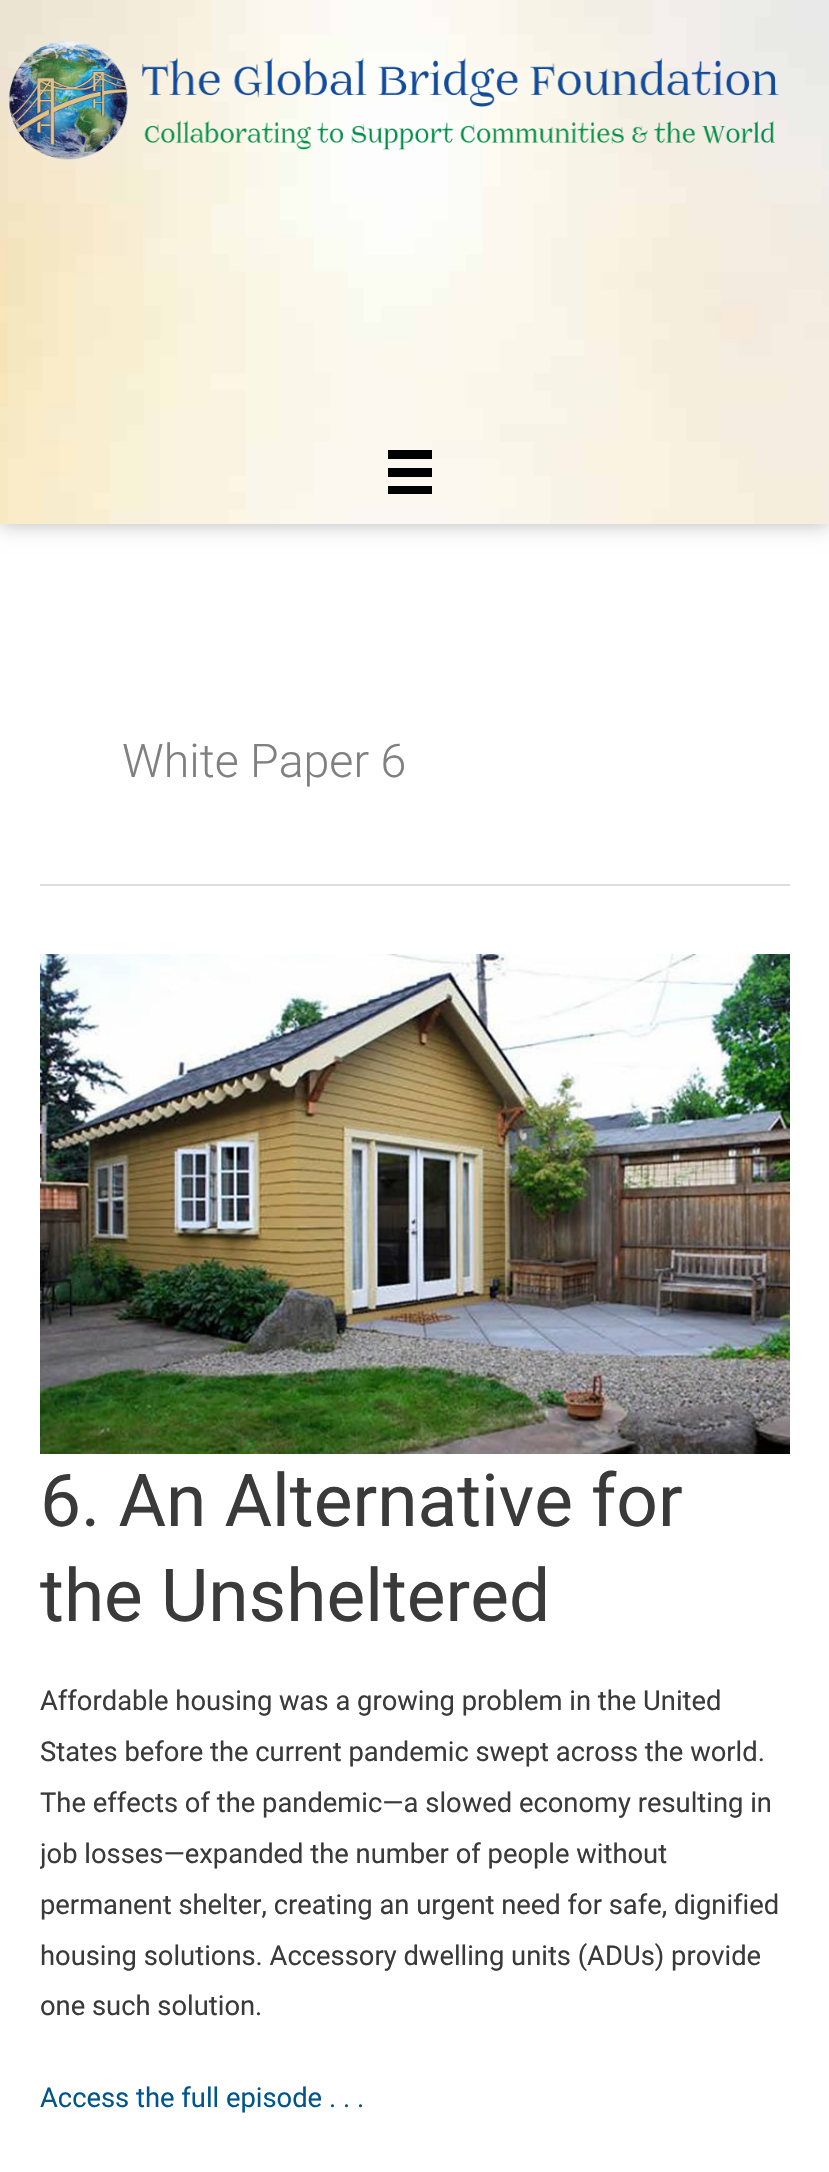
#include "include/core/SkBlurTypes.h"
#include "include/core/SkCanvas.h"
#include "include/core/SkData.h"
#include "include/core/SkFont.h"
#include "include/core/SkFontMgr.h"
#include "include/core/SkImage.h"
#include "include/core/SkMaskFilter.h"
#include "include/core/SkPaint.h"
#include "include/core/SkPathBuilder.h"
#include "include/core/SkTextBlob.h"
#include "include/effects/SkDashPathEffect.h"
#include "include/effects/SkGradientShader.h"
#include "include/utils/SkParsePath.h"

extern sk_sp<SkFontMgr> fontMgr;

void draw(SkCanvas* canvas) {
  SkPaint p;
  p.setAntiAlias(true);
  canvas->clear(SK_ColorWHITE);
  p.setColor(SkColorSetRGB(184, 184, 184));
  p.setMaskFilter(SkMaskFilter::MakeBlur(kNormal_SkBlurStyle, 10));
  canvas->drawRect(SkRect::MakeLTRB(0, 0, 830, 524), p);
  p.setMaskFilter(nullptr);
  canvas->drawImageRect(SkImages::DeferredFromEncodedData(SkData::MakeFromFileName("images/1.png")), SkRect::MakeLTRB(0, 0, 829, 524), SkSamplingOptions());
  canvas->drawImageRect(SkImages::DeferredFromEncodedData(SkData::MakeFromFileName("images/2.png")), SkRect::MakeLTRB(8, 41, 779, 160), SkSamplingOptions());
  p.setColor(SK_ColorBLACK);
  canvas->drawRect(SkRect::MakeLTRB(388, 450, 432, 459), p);
  canvas->drawRect(SkRect::MakeLTRB(388, 468, 432, 477), p);
  canvas->drawRect(SkRect::MakeLTRB(388, 486, 432, 494), p);
  p.setColor(SkColorSetRGB(221, 221, 221));
  canvas->drawRect(SkRect::MakeLTRB(40, 884, 790, 886), p);
  canvas->drawImageRect(SkImages::DeferredFromEncodedData(SkData::MakeFromFileName("images/3.png")), SkRect::MakeLTRB(40, 954, 790, 1454), SkSamplingOptions());
  SkFont font1(fontMgr->matchFamilyStyle("Roboto", SkFontStyle(300, SkFontStyle::kNormal_Width, SkFontStyle::kUpright_Slant)), 46.5f);
  font1.setSubpixel(true);
  p.setColor(SkColorSetRGB(128, 128, 128));
  canvas->drawString("White Paper 6", 122, 777, font1, p);
  SkFont font2(fontMgr->matchFamilyStyle("Roboto", SkFontStyle::Normal()), 73);
  font2.setSubpixel(true);
  p.setColor(SkColorSetRGB(58, 58, 58));
  canvas->drawString("6. An Alternative for", 40, 1526, font2, p);
  canvas->drawString("the Unsheltered", 40, 1621, font2, p);
  SkFont font3(fontMgr->matchFamilyStyle("Roboto", SkFontStyle::Normal()), 27.35f);
  font3.setSubpixel(true);
  canvas->drawString("Affordable housing was a growing problem in the United", 40, 1710, font3, p);
  canvas->drawString("States before the current pandemic swept across the world.", 40, 1761, font3, p);
  canvas->drawString("The effects of the pandemic—a slowed economy resulting in", 40, 1812, font3, p);
  canvas->save();
  canvas->clipRect(SkRect::MakeLTRB(40, 954, 790, 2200));
  canvas->drawString("job losses—expanded the number of people without", 40, 1863, font3, p);
  canvas->restore();
  canvas->drawString("permanent shelter, creating an urgent need for safe, dignified", 40, 1914, font3, p);
  canvas->drawString("housing solutions. Accessory dwelling units (ADUs) provide", 40, 1965, font3, p);
  canvas->drawString("one such solution.", 40, 2015, font3, p);
  p.setColor(SkColorSetRGB(1, 85, 141));
  canvas->drawString("Access the full episode . . .", 40, 2107, font3, p);
}
